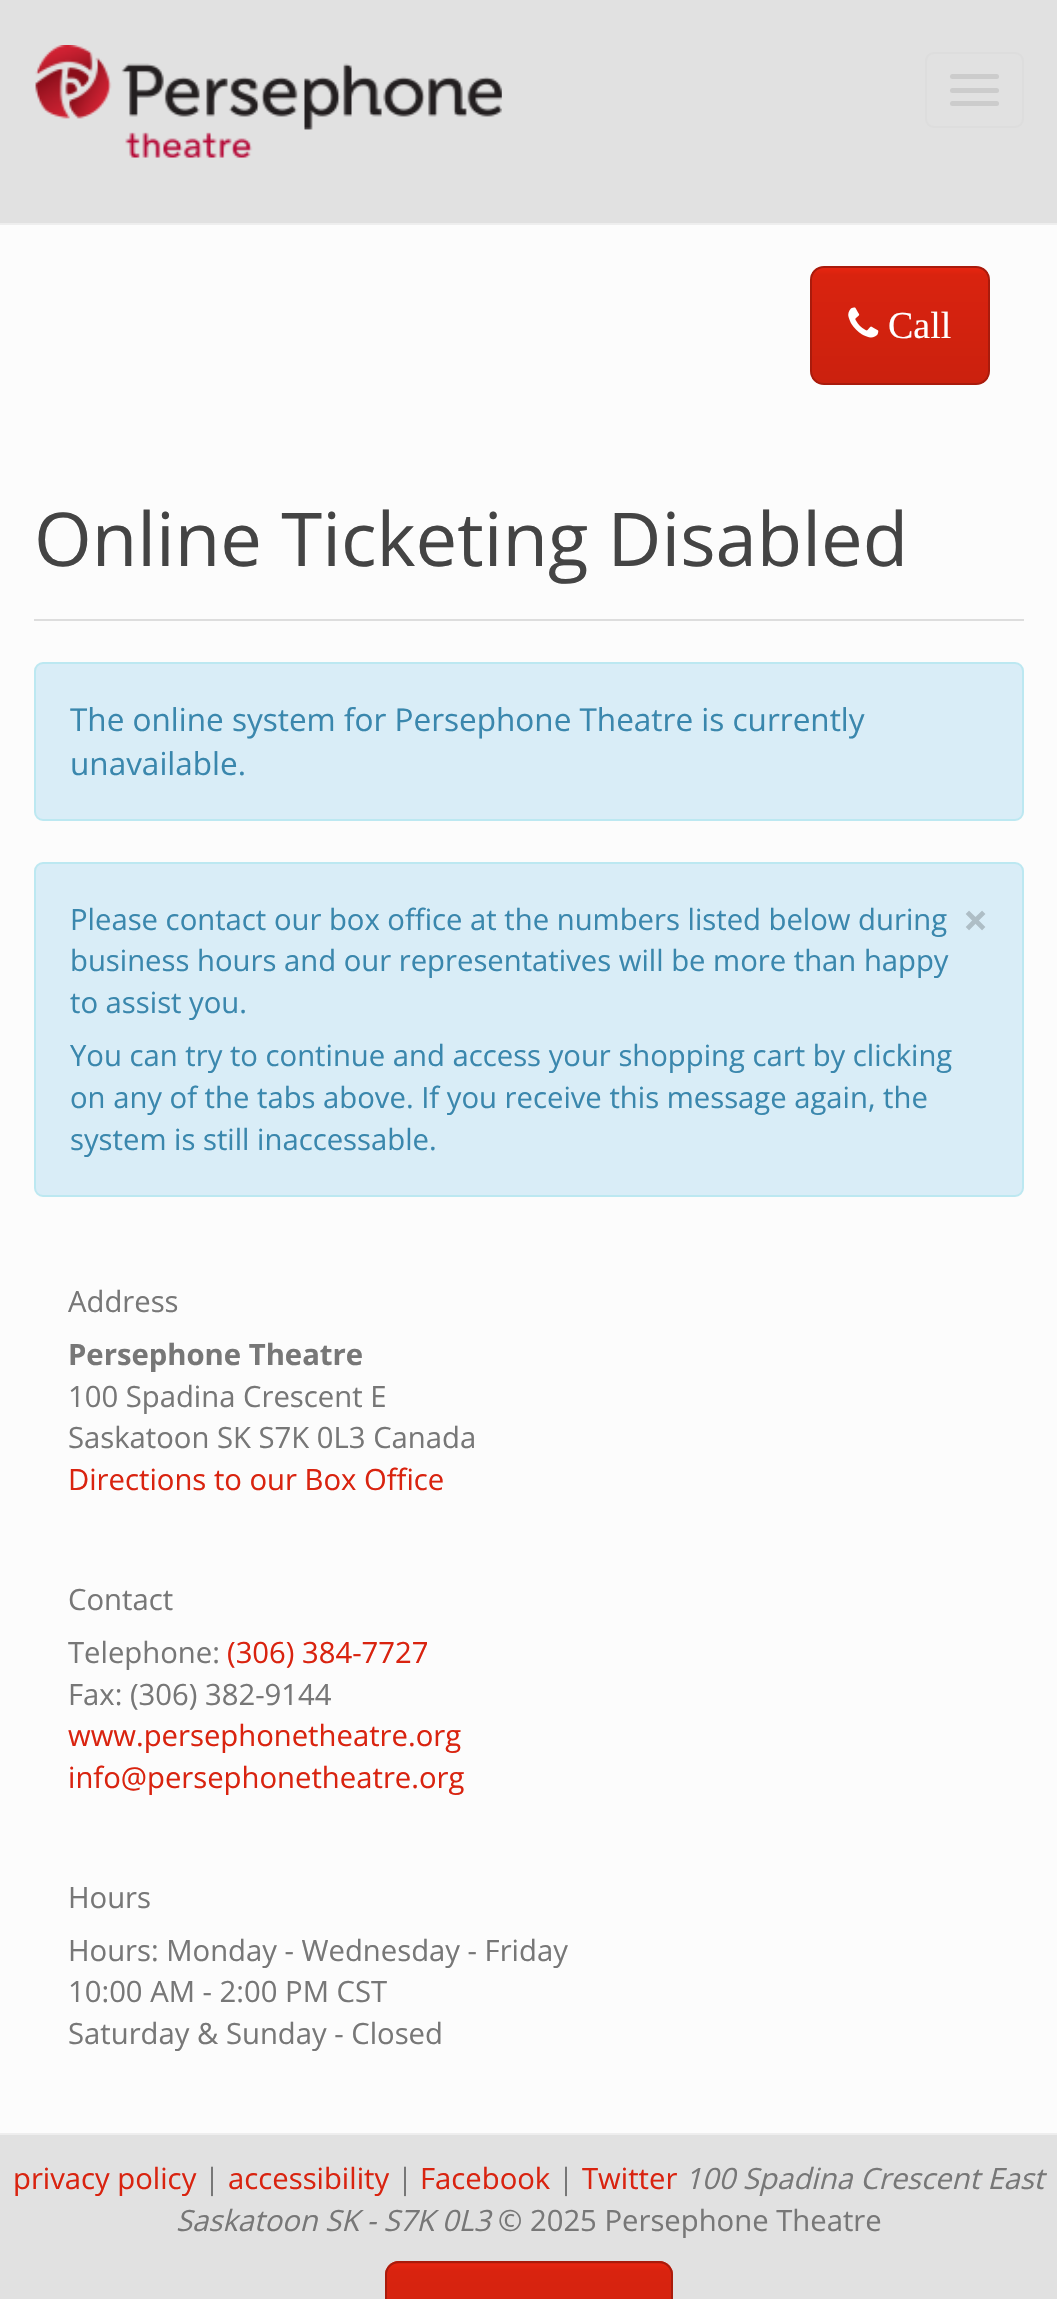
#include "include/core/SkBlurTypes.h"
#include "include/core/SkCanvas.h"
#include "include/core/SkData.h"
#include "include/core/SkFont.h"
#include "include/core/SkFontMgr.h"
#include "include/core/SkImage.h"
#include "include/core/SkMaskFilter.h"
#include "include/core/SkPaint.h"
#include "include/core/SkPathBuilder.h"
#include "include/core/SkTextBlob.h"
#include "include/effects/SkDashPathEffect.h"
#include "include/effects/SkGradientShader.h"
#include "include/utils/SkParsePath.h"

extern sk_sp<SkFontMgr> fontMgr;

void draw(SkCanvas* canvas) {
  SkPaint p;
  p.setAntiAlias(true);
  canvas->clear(SkColorSetRGB(252, 252, 252));
  p.setColor(SkColorSetRGB(225, 225, 225));
  canvas->drawRect(SkRect::MakeLTRB(0, 0, 1057, 223), p);
  p.setColor(SkColorSetRGB(238, 238, 238));
  canvas->drawRect(SkRect::MakeLTRB(0, 223, 1057, 225), p);
  canvas->drawImageRect(SkImages::DeferredFromEncodedData(SkData::MakeFromFileName("images/1.png")), SkRect::MakeLTRB(35, 45, 502, 158), SkSamplingOptions());
  p.setStyle(SkPaint::kStroke_Style);
  p.setStrokeWidth(2);
  p.setColor(SkColorSetRGB(221, 221, 221));
  canvas->drawRoundRect(SkRect::MakeLTRB(926, 53, 1023, 127), 8, 8, p);
  p.setStyle(SkPaint::kFill_Style);
  p.setColor(SkColorSetRGB(204, 204, 204));
  canvas->drawRoundRect(SkRect::MakeLTRB(950, 74, 999, 79), 2.5f, 2.5f, p);
  canvas->drawRoundRect(SkRect::MakeLTRB(950, 88, 999, 93), 2.5f, 2.5f, p);
  canvas->drawRoundRect(SkRect::MakeLTRB(950, 101, 999, 106), 2.5f, 2.5f, p);
  canvas->save();
  canvas->clipPath(SkPathBuilder().moveTo(824, 266).lineTo(976, 266).cubicTo(983.5f, 266, 990, 272.5f, 990, 280).lineTo(990, 371).cubicTo(990, 378.5f, 983.5f, 385, 976, 385).lineTo(824, 385).cubicTo(816.5f, 385, 810, 378.5f, 810, 371).lineTo(810, 280).cubicTo(810, 272.5f, 816.5f, 266, 824, 266).close().detach(), true);
  {
    const SkColor colors[] = {SkColorSetRGB(231, 37, 16), SkColorSetRGB(217, 35, 15), SkColorSetRGB(203, 33, 14)};
    const float stops[] = {0, 0.06f, 1};
    const SkPoint ends[] = {{900, 268}, {900, 383}};
    p.setShader(SkGradientShader::MakeLinear(ends, colors, stops, 3, SkTileMode::kClamp));
    p.setAlpha(255);
  }
  canvas->drawRect(SkRect::MakeLTRB(812, 268, 988, 383), p);
  canvas->restore();
  p.setStyle(SkPaint::kStroke_Style);
  p.setShader(nullptr);
  p.setColor(SkColorSetRGB(169, 27, 12));
  canvas->drawRoundRect(SkRect::MakeLTRB(811, 267, 989, 384), 13, 13, p);
  canvas->drawImageRect(SkImages::DeferredFromEncodedData(SkData::MakeFromFileName("images/2.png")), SkRect::MakeLTRB(848, 307, 879, 338), SkSamplingOptions());
  p.setStyle(SkPaint::kFill_Style);
  p.setColor(SkColorSetRGB(221, 221, 221));
  canvas->drawRect(SkRect::MakeLTRB(34, 619, 1024, 621), p);
  p.setColor(SkColorSetRGB(217, 237, 247));
  canvas->drawRoundRect(SkRect::MakeLTRB(35, 663, 1023, 820), 8, 8, p);
  p.setStyle(SkPaint::kStroke_Style);
  p.setColor(SkColorSetRGB(188, 232, 241));
  canvas->drawRoundRect(SkRect::MakeLTRB(35, 663, 1023, 820), 8, 8, p);
  p.setStyle(SkPaint::kFill_Style);
  p.setColor(SkColorSetRGB(217, 237, 247));
  canvas->drawRoundRect(SkRect::MakeLTRB(35, 863, 1023, 1196), 8, 8, p);
  p.setStyle(SkPaint::kStroke_Style);
  p.setColor(SkColorSetRGB(188, 232, 241));
  canvas->drawRoundRect(SkRect::MakeLTRB(35, 863, 1023, 1196), 8, 8, p);
  p.setStyle(SkPaint::kFill_Style);
  p.setColor(SkColorSetRGB(225, 225, 225));
  canvas->drawRect(SkRect::MakeLTRB(0, 2135, 1057, 2299), p);
  p.setColor(SkColorSetRGB(238, 238, 238));
  canvas->drawRect(SkRect::MakeLTRB(0, 2133, 1057, 2135), p);
  p.setColor(SkColorSetRGB(217, 35, 15));
  canvas->drawRoundRect(SkRect::MakeLTRB(385, 2261, 673, 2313), 14, 14, p);
  canvas->save();
  canvas->clipPath(SkPathBuilder().moveTo(399, 2261).lineTo(659, 2261).cubicTo(666.5f, 2261, 673, 2267.5f, 673, 2275).lineTo(673, 2367).cubicTo(673, 2374.5f, 666.5f, 2381, 659, 2381).lineTo(399, 2381).cubicTo(391.5f, 2381, 385, 2374.5f, 385, 2367).lineTo(385, 2275).cubicTo(385, 2267.5f, 391.5f, 2261, 399, 2261).close().detach(), true);
  {
    const SkColor colors[] = {SkColorSetRGB(231, 37, 16), SkColorSetRGB(217, 35, 15), SkColorSetRGB(203, 33, 14)};
    const float stops[] = {0, 0.06f, 1};
    const SkPoint ends[] = {{529, 2264}, {529, 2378}};
    p.setShader(SkGradientShader::MakeLinear(ends, colors, stops, 3, SkTileMode::kClamp));
    p.setAlpha(255);
  }
  canvas->drawRect(SkRect::MakeLTRB(387, 2264, 671, 2299), p);
  canvas->restore();
  p.setStyle(SkPaint::kStroke_Style);
  p.setShader(nullptr);
  p.setColor(SkColorSetRGB(169, 27, 12));
  canvas->drawRoundRect(SkRect::MakeLTRB(386, 2262, 672, 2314), 13, 13, p);
  SkFont font1(fontMgr->matchFamilyStyle("Liberation Serif", SkFontStyle::Normal()), 38);
  font1.setSubpixel(true);
  p.setStyle(SkPaint::kFill_Style);
  p.setColor(SK_ColorWHITE);
  canvas->drawString("Call", 888, 338, font1, p);
  SkFont font2(fontMgr->matchFamilyStyle("Open Sans", SkFontStyle::Normal()), 74.25f);
  font2.setSubpixel(true);
  p.setColor(SkColorSetRGB(68, 68, 68));
  canvas->drawString("Online Ticketing Disabled", 34, 566, font2, p);
  SkFont font3(fontMgr->matchFamilyStyle("Open Sans", SkFontStyle::Normal()), 31.5f);
  font3.setSubpixel(true);
  p.setColor(SkColorSetRGB(58, 135, 173));
  canvas->drawString("The online system for Persephone Theatre is currently", 70, 731, font3, p);
  canvas->drawString("unavailable.", 70, 775, font3, p);
  SkFont font4(fontMgr->matchFamilyStyle("Open Sans", SkFontStyle::Normal()), 29.25f);
  font4.setSubpixel(true);
  canvas->drawString("Please contact our box office at the numbers listed below during", 70, 930, font4, p);
  canvas->drawString("business hours and our representatives will be more than happy", 70, 971, font4, p);
  canvas->drawString("to assist you.", 70, 1013, font4, p);
  SkFont font5(fontMgr->matchFamilyStyle("Open Sans", SkFontStyle::Bold()), 44);
  font5.setSubpixel(true);
  p.setColor(SkColorSetRGB(174, 190, 198));
  canvas->drawString("×", 963, 936, font5, p);
  p.setColor(SkColorSetRGB(58, 135, 173));
  canvas->drawString("You can try to continue and access your shopping cart by clicking", 70, 1066, font4, p);
  canvas->drawString("on any of the tabs above. If you receive this message again, the", 70, 1108, font4, p);
  canvas->drawString("system is still inaccessable.", 70, 1150, font4, p);
  p.setColor(SkColorSetRGB(119, 119, 119));
  canvas->drawString("Address", 68, 1312, font4, p);
  SkFont font6(fontMgr->matchFamilyStyle("Open Sans", SkFontStyle::Bold()), 29.25f);
  font6.setSubpixel(true);
  canvas->drawString("Persephone Theatre", 68, 1365, font6, p);
  canvas->drawString("100 Spadina Crescent E", 68, 1407, font4, p);
  canvas->drawString("Saskatoon SK S7K 0L3 Canada", 68, 1448, font4, p);
  p.setColor(SkColorSetRGB(217, 35, 15));
  canvas->drawString("Directions to our Box Office", 68, 1490, font4, p);
  p.setColor(SkColorSetRGB(119, 119, 119));
  canvas->drawString("Contact", 68, 1610, font4, p);
  canvas->drawString("Telephone:", 68, 1663, font4, p);
  p.setColor(SkColorSetRGB(217, 35, 15));
  canvas->drawString("(306) 384-7727", 227, 1663, font4, p);
  p.setColor(SkColorSetRGB(119, 119, 119));
  canvas->drawString("Fax: (306) 382-9144", 68, 1705, font4, p);
  p.setColor(SkColorSetRGB(217, 35, 15));
  canvas->drawString("www.persephonetheatre.org", 68, 1746, font4, p);
  canvas->drawString("info@persephonetheatre.org", 68, 1788, font4, p);
  p.setColor(SkColorSetRGB(119, 119, 119));
  canvas->drawString("Hours", 68, 1908, font4, p);
  canvas->drawString("Hours: Monday - Wednesday - Friday", 68, 1961, font4, p);
  canvas->drawString("10:00 AM - 2:00 PM CST", 68, 2002, font4, p);
  canvas->drawString("Saturday & Sunday - Closed", 68, 2044, font4, p);
  p.setColor(SkColorSetRGB(217, 35, 15));
  canvas->drawString("privacy policy", 13, 2189, font4, p);
  p.setColor(SkColorSetRGB(119, 119, 119));
  canvas->drawString("|", 204, 2189, font4, p);
  p.setColor(SkColorSetRGB(217, 35, 15));
  canvas->drawString("accessibility", 228, 2189, font4, p);
  p.setColor(SkColorSetRGB(119, 119, 119));
  canvas->drawString("|", 397, 2189, font4, p);
  p.setColor(SkColorSetRGB(217, 35, 15));
  canvas->drawString("Facebook", 420, 2189, font4, p);
  p.setColor(SkColorSetRGB(119, 119, 119));
  canvas->drawString("|", 558, 2189, font4, p);
  p.setColor(SkColorSetRGB(217, 35, 15));
  canvas->drawString("Twitter", 582, 2189, font4, p);
  SkFont font7(fontMgr->matchFamilyStyle("Open Sans", SkFontStyle::Italic()), 29.25f);
  font7.setSubpixel(true);
  p.setColor(SkColorSetRGB(119, 119, 119));
  canvas->drawString("100 Spadina Crescent East", 685, 2189, font7, p);
  canvas->drawString("Saskatoon SK - S7K 0L3", 176, 2231, font7, p);
  canvas->drawString("© 2025 Persephone Theatre", 498, 2231, font4, p);
}
